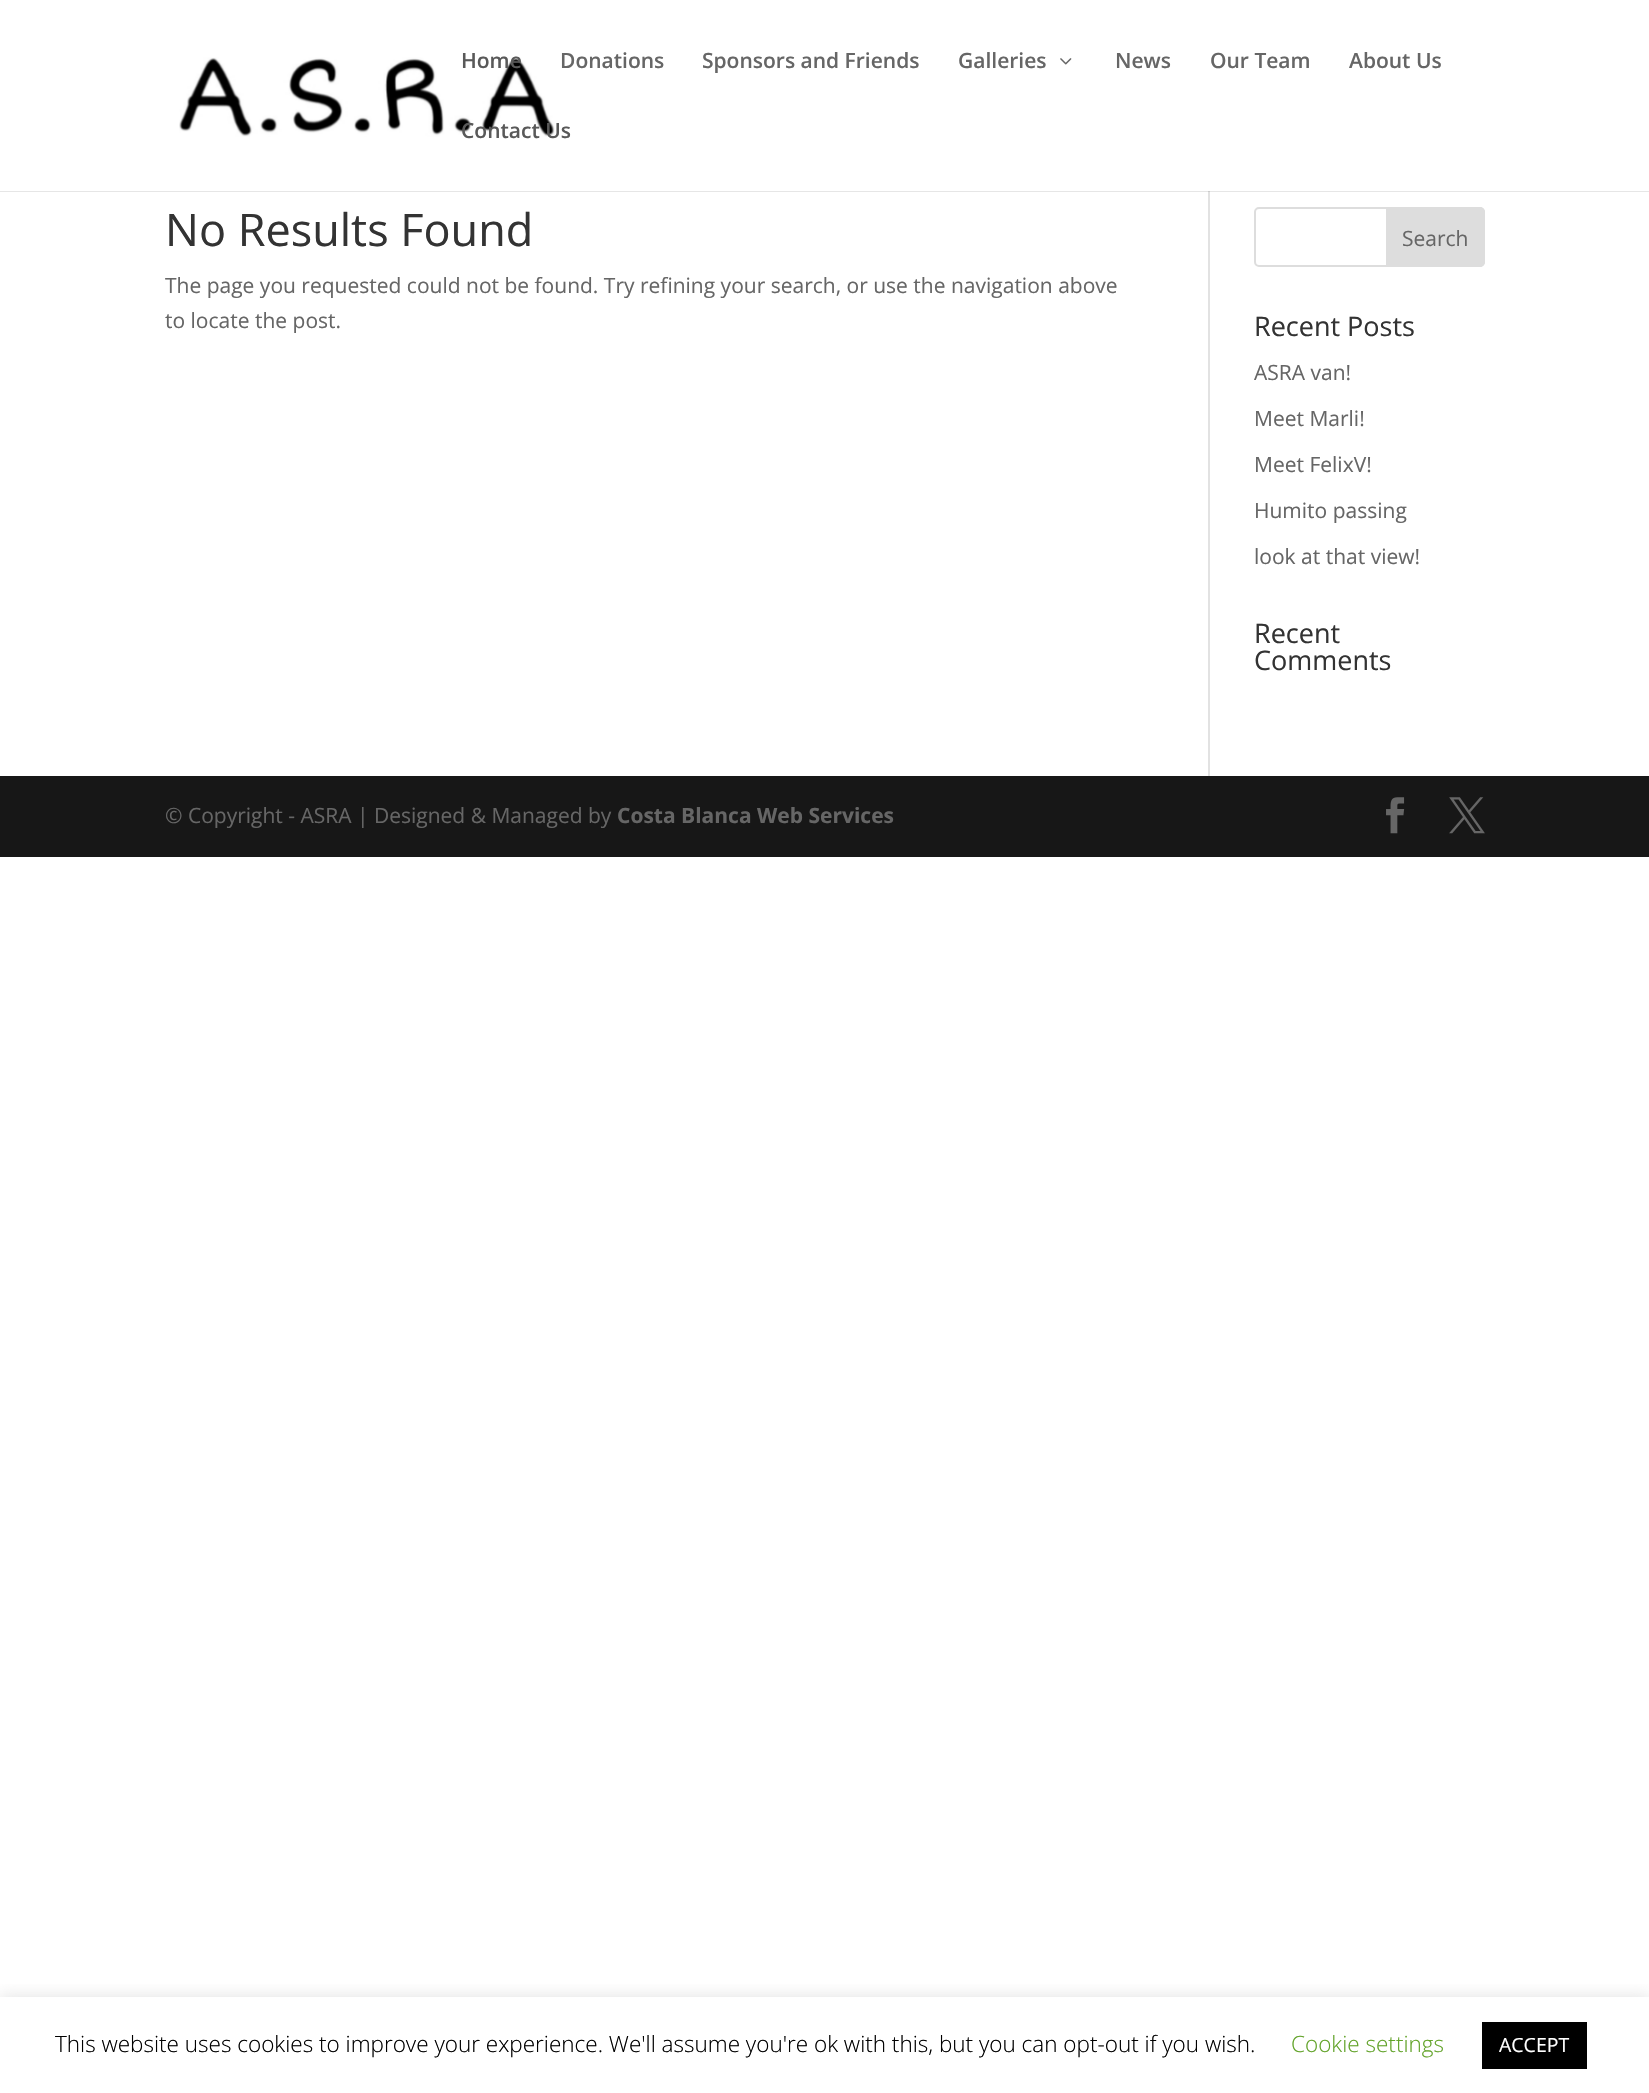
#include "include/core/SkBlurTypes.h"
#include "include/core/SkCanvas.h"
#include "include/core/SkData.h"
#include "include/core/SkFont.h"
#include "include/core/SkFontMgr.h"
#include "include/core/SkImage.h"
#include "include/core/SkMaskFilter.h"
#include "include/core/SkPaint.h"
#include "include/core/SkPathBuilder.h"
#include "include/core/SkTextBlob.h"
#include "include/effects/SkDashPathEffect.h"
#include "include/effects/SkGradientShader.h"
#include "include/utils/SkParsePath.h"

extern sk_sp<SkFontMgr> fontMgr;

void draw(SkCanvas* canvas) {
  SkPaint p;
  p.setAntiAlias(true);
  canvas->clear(SK_ColorWHITE);
  p.setColor(SkColorSetRGB(230, 230, 230));
  canvas->drawRect(SkRect::MakeLTRB(0, 191, 1649, 192), p);
  canvas->drawImageRect(SkImages::DeferredFromEncodedData(SkData::MakeFromFileName("images/1.png")), SkRect::MakeLTRB(179, 57, 555, 137), SkSamplingOptions());
  canvas->drawImageRect(SkImages::DeferredFromEncodedData(SkData::MakeFromFileName("images/2.png")), SkRect::MakeLTRB(1060, 58, 1072, 65), SkSamplingOptions());
  p.setColor(SkColorSetRGB(226, 226, 226));
  canvas->drawRect(SkRect::MakeLTRB(1208, 192, 1210, 776), p);
  p.setColor(SkColorSetRGB(203, 203, 203));
  canvas->drawRect(SkRect::MakeLTRB(1208, 191, 1210, 192), p);
  p.setStyle(SkPaint::kStroke_Style);
  p.setStrokeWidth(2);
  p.setColor(SkColorSetRGB(221, 221, 221));
  canvas->drawRoundRect(SkRect::MakeLTRB(1255, 208, 1484, 266), 4, 4, p);
  p.setStyle(SkPaint::kFill_Style);
  canvas->drawPath(SkPathBuilder().moveTo(1387, 208).lineTo(1480, 208).cubicTo(1482, 208, 1484, 210, 1484, 212).lineTo(1484, 262).cubicTo(1484, 264, 1482, 266, 1480, 266).lineTo(1387, 266).close().detach(), p);
  p.setStyle(SkPaint::kStroke_Style);
  canvas->drawPath(SkPathBuilder().moveTo(1387, 208).lineTo(1480, 208).cubicTo(1482, 208, 1484, 210, 1484, 212).lineTo(1484, 262).cubicTo(1484, 264, 1482, 266, 1480, 266).lineTo(1387, 266).close().detach(), p);
  p.setStyle(SkPaint::kFill_Style);
  p.setColor(SkColorSetRGB(23, 23, 23));
  canvas->drawRect(SkRect::MakeLTRB(0, 776, 1649, 857), p);
  canvas->drawImageRect(SkImages::DeferredFromEncodedData(SkData::MakeFromFileName("images/3.png")), SkRect::MakeLTRB(1386, 797, 1405, 834), SkSamplingOptions());
  canvas->drawImageRect(SkImages::DeferredFromEncodedData(SkData::MakeFromFileName("images/4.png")), SkRect::MakeLTRB(1449, 797, 1485, 834), SkSamplingOptions());
  canvas->save();
  canvas->clipRect(SkRect::MakeLTRB(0, 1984, 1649, 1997));
  p.setColor(SkColorSetARGB(77, 172, 171, 171));
  p.setMaskFilter(SkMaskFilter::MakeBlur(kNormal_SkBlurStyle, 7.5f));
  canvas->drawRect(SkRect::MakeLTRB(0, 1995, 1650, 2093), p);
  p.setMaskFilter(nullptr);
  canvas->restore();
  p.setColor(SK_ColorBLACK);
  canvas->drawRect(SkRect::MakeLTRB(1482, 2022, 1587, 2069), p);
  SkFont font1(fontMgr->matchFamilyStyle("Open Sans", SkFontStyle(600, SkFontStyle::kNormal_Width, SkFontStyle::kUpright_Slant)), 21);
  font1.setSubpixel(true);
  p.setColor(SkColorSetRGB(89, 89, 89));
  canvas->drawString("Home", 461, 68, font1, p);
  p.setColor(SkColorSetRGB(102, 102, 102));
  canvas->drawString("Donations", 560, 68, font1, p);
  canvas->drawString("Sponsors and Friends", 702, 68, font1, p);
  canvas->drawString("Galleries", 958, 68, font1, p);
  canvas->drawString("News", 1115, 68, font1, p);
  canvas->drawString("Our Team", 1210, 68, font1, p);
  canvas->drawString("About Us", 1349, 68, font1, p);
  p.setColor(SkColorSetRGB(89, 89, 89));
  canvas->drawString("Contact Us", 461, 138, font1, p);
  SkFont font2(fontMgr->matchFamilyStyle("Open Sans", SkFontStyle::Normal()), 45);
  font2.setSubpixel(true);
  p.setColor(SkColorSetRGB(51, 51, 51));
  canvas->drawString("No Results Found", 165, 246, font2, p);
  SkFont font3(fontMgr->matchFamilyStyle("Open Sans", SkFontStyle::Normal()), 21);
  font3.setSubpixel(true);
  p.setColor(SkColorSetRGB(102, 102, 102));
  canvas->drawString("The page you requested could not be found. Try refining your search, or use the navigation above", 165, 293, font3, p);
  canvas->drawString("to locate the post.", 165, 328, font3, p);
  canvas->drawString("Search", 1402, 246, font3, p);
  SkFont font4(fontMgr->matchFamilyStyle("Open Sans", SkFontStyle::Normal()), 27);
  font4.setSubpixel(true);
  p.setColor(SkColorSetRGB(51, 51, 51));
  canvas->drawString("Recent Posts", 1254, 336, font4, p);
  p.setColor(SkColorSetRGB(102, 102, 102));
  canvas->drawString("ASRA van!", 1254, 380, font3, p);
  canvas->drawString("Meet Marli!", 1254, 426, font3, p);
  canvas->drawString("Meet FelixV!", 1254, 472, font3, p);
  canvas->drawString("Humito passing", 1254, 518, font3, p);
  canvas->drawString("look at that view!", 1254, 564, font3, p);
  p.setColor(SkColorSetRGB(51, 51, 51));
  canvas->drawString("Recent", 1254, 643, font4, p);
  canvas->drawString("Comments", 1254, 670, font4, p);
  p.setColor(SkColorSetRGB(102, 102, 102));
  canvas->drawString("© Copyright - ASRA | Designed & Managed by", 165, 823, font3, p);
  SkFont font5(fontMgr->matchFamilyStyle("Open Sans", SkFontStyle::Bold()), 21);
  font5.setSubpixel(true);
  canvas->drawString("Costa Blanca Web Services", 617, 823, font5, p);
  SkFont font6(fontMgr->matchFamilyStyle("Open Sans", SkFontStyle(300, SkFontStyle::kNormal_Width, SkFontStyle::kUpright_Slant)), 22.5f);
  font6.setSubpixel(true);
  p.setColor(SK_ColorBLACK);
  canvas->drawString("This website uses cookies to improve your experience. We'll assume you're ok with this, but you can opt-out if you wish.", 55, 2052, font6, p);
  p.setColor(SkColorSetRGB(98, 163, 41));
  canvas->drawString("Cookie settings", 1291, 2052, font6, p);
  SkFont font7(fontMgr->matchFamilyStyle("Open Sans", SkFontStyle::Normal()), 19.5f);
  font7.setSubpixel(true);
  p.setColor(SK_ColorWHITE);
  canvas->drawString("ACCEPT", 1499, 2052, font7, p);
}
